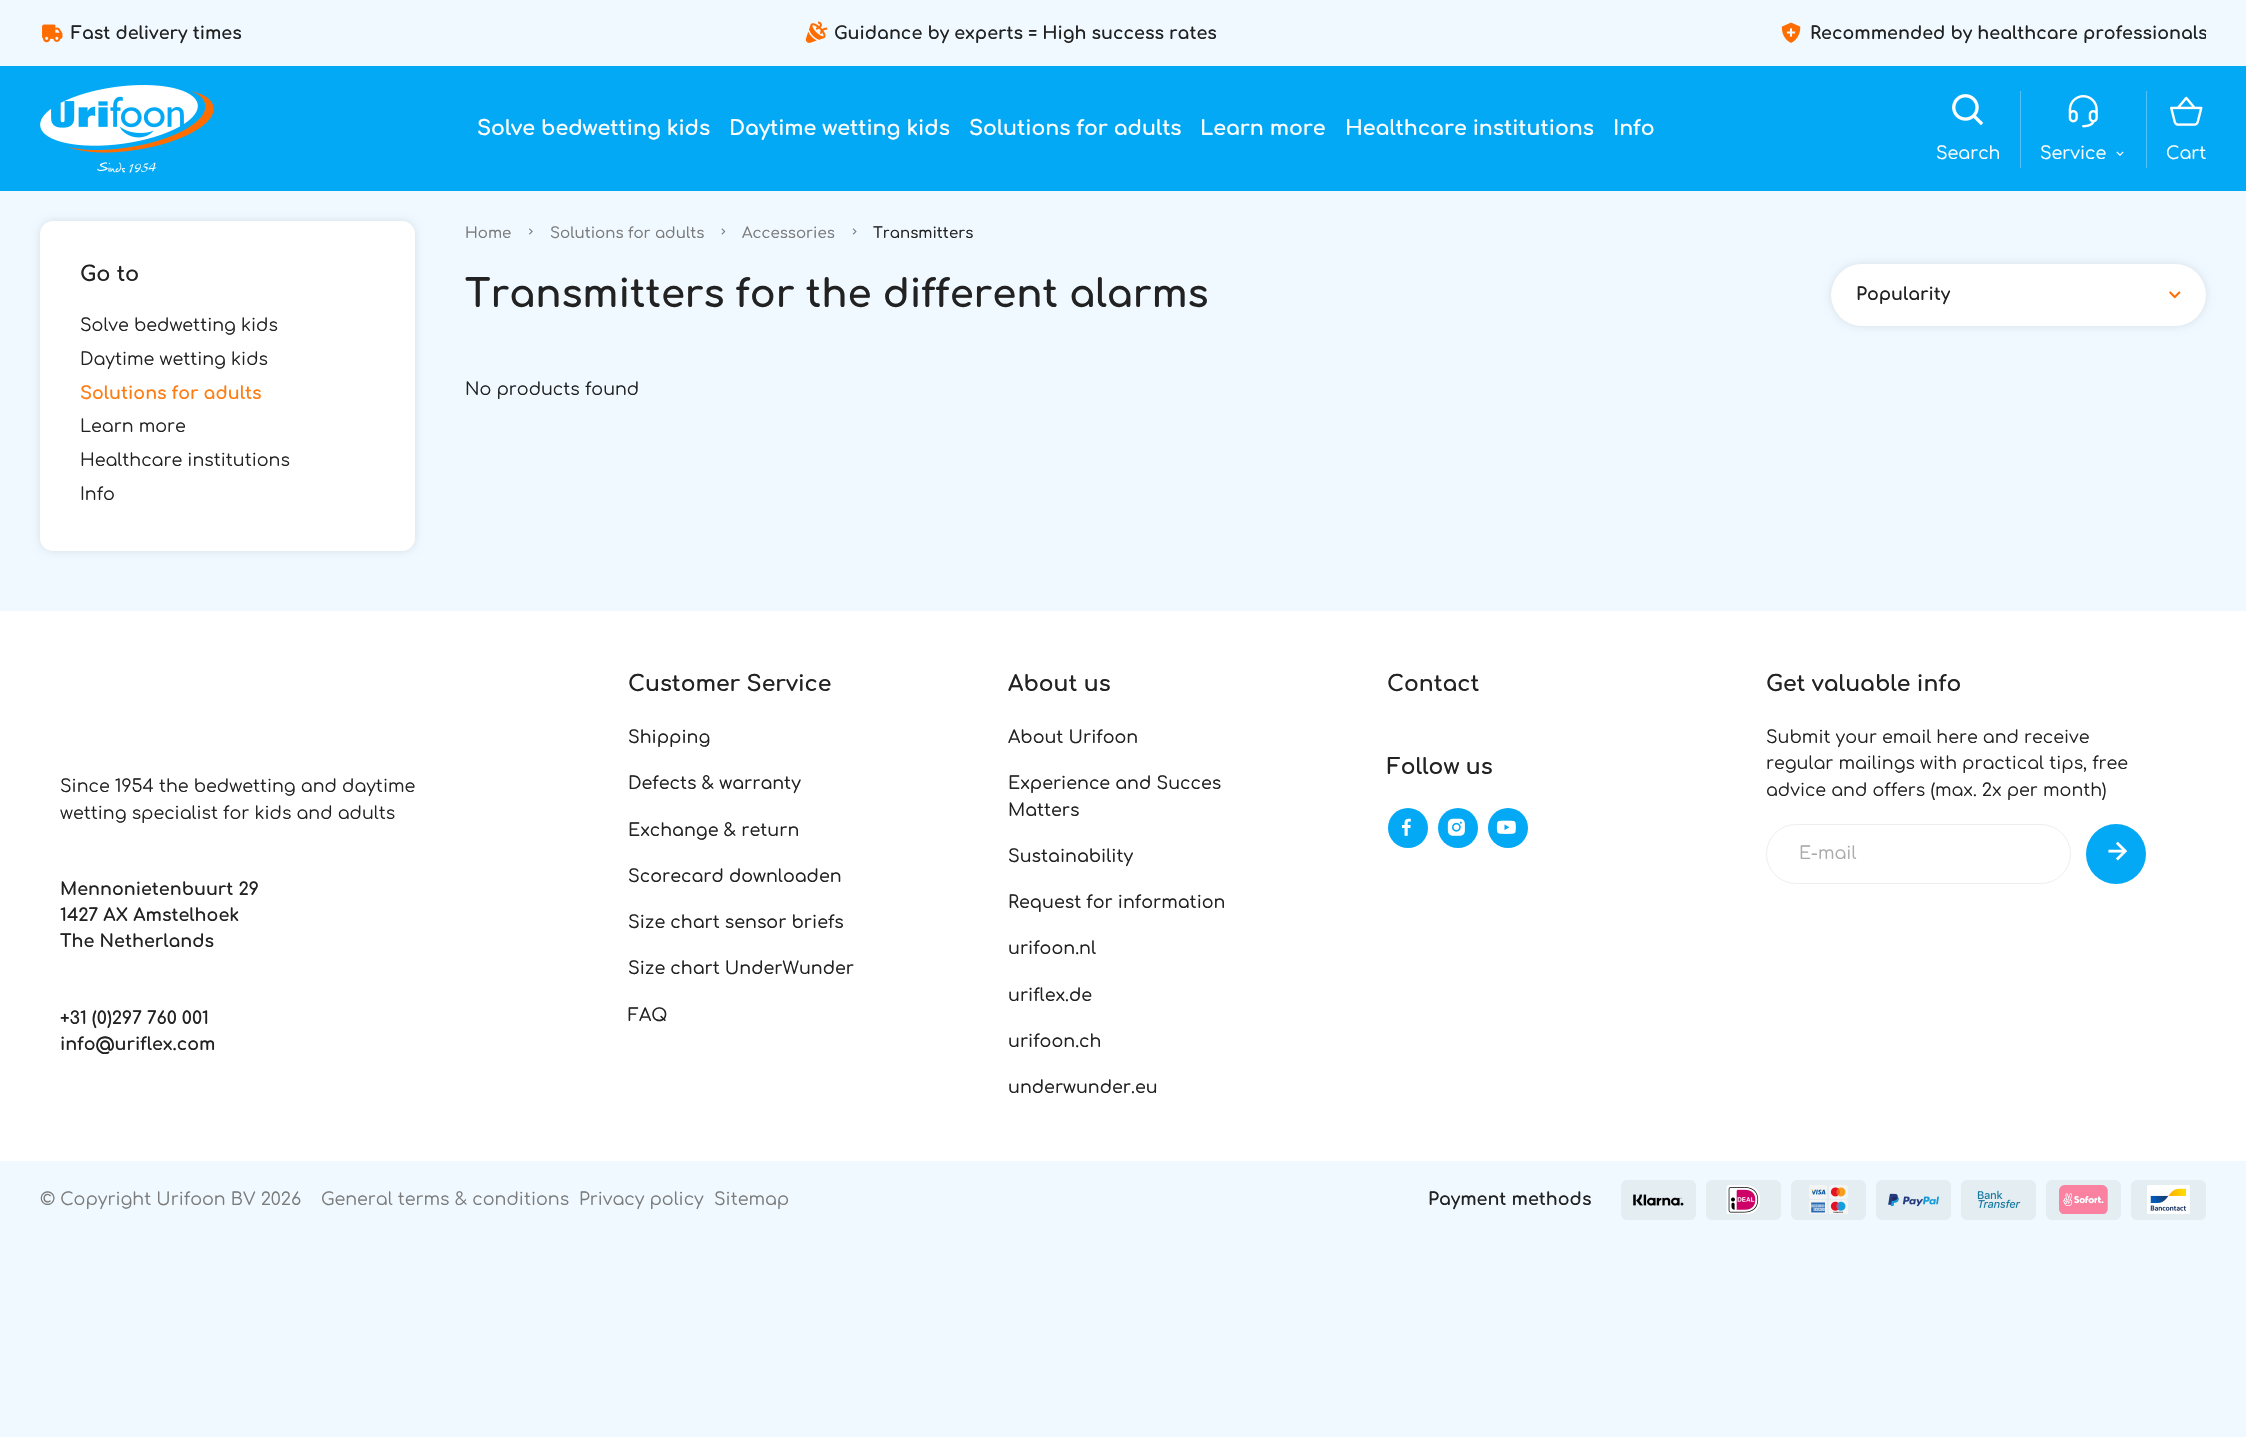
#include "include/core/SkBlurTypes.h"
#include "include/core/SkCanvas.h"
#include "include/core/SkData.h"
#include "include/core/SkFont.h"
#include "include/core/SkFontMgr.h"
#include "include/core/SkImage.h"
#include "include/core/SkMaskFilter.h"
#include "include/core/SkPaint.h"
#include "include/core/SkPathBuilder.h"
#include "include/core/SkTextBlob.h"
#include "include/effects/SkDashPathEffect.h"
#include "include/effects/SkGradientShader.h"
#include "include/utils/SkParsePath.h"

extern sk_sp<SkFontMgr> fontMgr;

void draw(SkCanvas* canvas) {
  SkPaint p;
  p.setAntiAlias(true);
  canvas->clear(SkColorSetRGB(239, 249, 255));
  canvas->drawImageRect(SkImages::DeferredFromEncodedData(SkData::MakeFromFileName("images/1.png")), SkRect::MakeLTRB(42, 24, 63, 43), SkSamplingOptions());
  canvas->drawImageRect(SkImages::DeferredFromEncodedData(SkData::MakeFromFileName("images/2.png")), SkRect::MakeLTRB(805, 21, 828, 43), SkSamplingOptions());
  canvas->drawImageRect(SkImages::DeferredFromEncodedData(SkData::MakeFromFileName("images/3.png")), SkRect::MakeLTRB(1781, 22, 1801, 43), SkSamplingOptions());
  p.setColor(SkColorSetRGB(3, 169, 244));
  canvas->drawRect(SkRect::MakeLTRB(0, 66, 2246, 191), p);
  canvas->drawImageRect(SkImages::DeferredFromEncodedData(SkData::MakeFromFileName("images/4.png")), SkRect::MakeLTRB(40, 85, 214, 173), SkSamplingOptions());
  canvas->drawImageRect(SkImages::DeferredFromEncodedData(SkData::MakeFromFileName("images/5.png")), SkRect::MakeLTRB(1952, 94, 1984, 126), SkSamplingOptions());
  p.setColor(SkColorSetRGB(79, 195, 247));
  canvas->drawRect(SkRect::MakeLTRB(2020, 91, 2021, 168), p);
  canvas->drawImageRect(SkImages::DeferredFromEncodedData(SkData::MakeFromFileName("images/6.png")), SkRect::MakeLTRB(2068, 95, 2098, 128), SkSamplingOptions());
  canvas->drawImageRect(SkImages::DeferredFromEncodedData(SkData::MakeFromFileName("images/7.png")), SkRect::MakeLTRB(2116, 151, 2124, 156), SkSamplingOptions());
  canvas->drawRect(SkRect::MakeLTRB(2146, 91, 2147, 168), p);
  canvas->drawImageRect(SkImages::DeferredFromEncodedData(SkData::MakeFromFileName("images/8.png")), SkRect::MakeLTRB(2170, 96, 2203, 126), SkSamplingOptions());
  p.setColor(SkColorSetARGB(26, 0, 0, 0));
  p.setMaskFilter(SkMaskFilter::MakeBlur(kNormal_SkBlurStyle, 4));
  canvas->drawRoundRect(SkRect::MakeLTRB(40, 221, 415, 551), 13, 13, p);
  p.setMaskFilter(nullptr);
  p.setColor(SK_ColorWHITE);
  canvas->drawRoundRect(SkRect::MakeLTRB(40, 221, 415, 551), 13, 13, p);
  canvas->drawImageRect(SkImages::DeferredFromEncodedData(SkData::MakeFromFileName("images/9.png")), SkRect::MakeLTRB(529, 228, 533, 235), SkSamplingOptions());
  canvas->drawImageRect(SkImages::DeferredFromEncodedData(SkData::MakeFromFileName("images/10.png")), SkRect::MakeLTRB(721, 228, 726, 235), SkSamplingOptions());
  canvas->drawImageRect(SkImages::DeferredFromEncodedData(SkData::MakeFromFileName("images/11.png")), SkRect::MakeLTRB(852, 228, 857, 235), SkSamplingOptions());
  p.setColor(SkColorSetARGB(26, 0, 0, 0));
  p.setMaskFilter(SkMaskFilter::MakeBlur(kNormal_SkBlurStyle, 4));
  canvas->drawRoundRect(SkRect::MakeLTRB(1831, 264, 2206, 326), 31, 31, p);
  p.setMaskFilter(nullptr);
  p.setColor(SK_ColorWHITE);
  canvas->drawRoundRect(SkRect::MakeLTRB(1831, 264, 2206, 326), 31, 31, p);
  canvas->drawImageRect(SkImages::DeferredFromEncodedData(SkData::MakeFromFileName("images/12.png")), SkRect::MakeLTRB(2169, 291, 2181, 299), SkSamplingOptions());
  canvas->drawRect(SkRect::MakeLTRB(0, 611, 2246, 1161), p);
  p.setColor(SkColorSetRGB(3, 169, 244));
  canvas->drawCircle(1408, 828, 20, p);
  canvas->drawImageRect(SkImages::DeferredFromEncodedData(SkData::MakeFromFileName("images/13.png")), SkRect::MakeLTRB(1401, 818, 1411, 836), SkSamplingOptions());
  canvas->drawCircle(1458, 828, 20, p);
  canvas->drawImageRect(SkImages::DeferredFromEncodedData(SkData::MakeFromFileName("images/14.png")), SkRect::MakeLTRB(1447, 818, 1465, 836), SkSamplingOptions());
  canvas->drawCircle(1508, 828, 20, p);
  canvas->drawImageRect(SkImages::DeferredFromEncodedData(SkData::MakeFromFileName("images/15.png")), SkRect::MakeLTRB(1496, 820, 1516, 834), SkSamplingOptions());
  p.setStyle(SkPaint::kStroke_Style);
  p.setStrokeWidth(1);
  p.setColor(SkColorSetRGB(238, 238, 238));
  canvas->drawRoundRect(SkRect::MakeLTRB(1766.5f, 824.5f, 2070.5f, 883.5f), 29.5f, 29.5f, p);
  p.setStyle(SkPaint::kFill_Style);
  p.setColor(SkColorSetRGB(3, 169, 244));
  canvas->drawCircle(2116, 854, 30, p);
  canvas->drawImageRect(SkImages::DeferredFromEncodedData(SkData::MakeFromFileName("images/16.png")), SkRect::MakeLTRB(2108, 841, 2128, 861), SkSamplingOptions());
  p.setColor(SkColorSetRGB(227, 237, 242));
  canvas->drawRoundRect(SkRect::MakeLTRB(1621, 1180, 1696, 1220), 6, 6, p);
  canvas->drawImageRect(SkImages::DeferredFromEncodedData(SkData::MakeFromFileName("images/17.png")), SkRect::MakeLTRB(1633, 1194, 1684, 1206), SkSamplingOptions());
  canvas->drawRoundRect(SkRect::MakeLTRB(1706, 1180, 1781, 1220), 6, 6, p);
  canvas->drawImageRect(SkImages::DeferredFromEncodedData(SkData::MakeFromFileName("images/18.png")), SkRect::MakeLTRB(1726, 1185, 1760, 1214), SkSamplingOptions());
  canvas->drawRoundRect(SkRect::MakeLTRB(1791, 1180, 1866, 1220), 6, 6, p);
  canvas->drawImageRect(SkImages::DeferredFromEncodedData(SkData::MakeFromFileName("images/19.png")), SkRect::MakeLTRB(1809, 1185, 1848, 1214), SkSamplingOptions());
  canvas->drawRoundRect(SkRect::MakeLTRB(1876, 1180, 1951, 1220), 6, 6, p);
  canvas->drawImageRect(SkImages::DeferredFromEncodedData(SkData::MakeFromFileName("images/20.png")), SkRect::MakeLTRB(1888, 1193, 1939, 1207), SkSamplingOptions());
  canvas->drawRoundRect(SkRect::MakeLTRB(1961, 1180, 2036, 1220), 6, 6, p);
  canvas->drawImageRect(SkImages::DeferredFromEncodedData(SkData::MakeFromFileName("images/21.png")), SkRect::MakeLTRB(1977, 1190, 2021, 1208), SkSamplingOptions());
  canvas->drawRoundRect(SkRect::MakeLTRB(2046, 1180, 2121, 1220), 6, 6, p);
  canvas->drawImageRect(SkImages::DeferredFromEncodedData(SkData::MakeFromFileName("images/22.png")), SkRect::MakeLTRB(2059, 1185, 2108, 1214), SkSamplingOptions());
  canvas->drawRoundRect(SkRect::MakeLTRB(2131, 1180, 2206, 1220), 6, 6, p);
  canvas->drawImageRect(SkImages::DeferredFromEncodedData(SkData::MakeFromFileName("images/23.png")), SkRect::MakeLTRB(2147, 1185, 2190, 1214), SkSamplingOptions());
  SkFont font1(fontMgr->matchFamilyStyle("Comfortaa", SkFontStyle::Bold()), 17.5f);
  font1.setSubpixel(true);
  p.setColor(SkColorSetRGB(34, 34, 34));
  canvas->drawString("Fast delivery times", 71, 39, font1, p);
  canvas->drawString("Guidance by experts = High success rates", 834, 39, font1, p);
  canvas->save();
  canvas->clipRect(SkRect::MakeLTRB(40, 20, 2206, 46));
  canvas->drawString("Recommended by healthcare professionals", 1810, 39, font1, p);
  canvas->restore();
  SkFont font2(fontMgr->matchFamilyStyle("Comfortaa", SkFontStyle::Bold()), 20.5f);
  font2.setSubpixel(true);
  p.setColor(SK_ColorWHITE);
  canvas->drawString("Solve bedwetting kids", 477, 135, font2, p);
  canvas->drawString("Daytime wetting kids", 729, 135, font2, p);
  canvas->drawString("Solutions for adults", 969, 135, font2, p);
  canvas->drawString("Learn more", 1200, 135, font2, p);
  canvas->drawString("Healthcare institutions", 1345, 135, font2, p);
  canvas->drawString("Info", 1613, 135, font2, p);
  SkFont font3(fontMgr->matchFamilyStyle("Comfortaa", SkFontStyle::Normal()), 17.5f);
  font3.setSubpixel(true);
  canvas->drawString("Search", 1936, 159, font3, p);
  canvas->drawString("Service", 2040, 159, font3, p);
  canvas->drawString("Cart", 2166, 159, font3, p);
  SkFont font4(fontMgr->matchFamilyStyle("Comfortaa", SkFontStyle::Bold()), 21);
  font4.setSubpixel(true);
  p.setColor(SkColorSetRGB(34, 34, 34));
  canvas->drawString("Go to", 80, 281, font4, p);
  canvas->drawString("Solve bedwetting kids", 80, 331, font3, p);
  canvas->drawString("Daytime wetting kids", 80, 365, font3, p);
  p.setColor(SkColorSetRGB(253, 126, 20));
  canvas->drawString("Solutions for adults", 80, 399, font1, p);
  p.setColor(SkColorSetRGB(34, 34, 34));
  canvas->drawString("Learn more", 80, 432, font3, p);
  canvas->drawString("Healthcare institutions", 80, 466, font3, p);
  canvas->drawString("Info", 80, 500, font3, p);
  SkFont font5(fontMgr->matchFamilyStyle("Comfortaa", SkFontStyle(500, SkFontStyle::kNormal_Width, SkFontStyle::kUpright_Slant)), 15);
  font5.setSubpixel(true);
  p.setColor(SkColorSetRGB(123, 123, 123));
  canvas->drawString("Home", 465, 238, font5, p);
  canvas->drawString("Solutions for adults", 550, 238, font5, p);
  canvas->drawString("Accessories", 742, 238, font5, p);
  p.setColor(SkColorSetRGB(34, 34, 34));
  canvas->drawString("Transmitters", 873, 238, font5, p);
  SkFont font6(fontMgr->matchFamilyStyle("Comfortaa", SkFontStyle::Bold()), 38.5f);
  font6.setSubpixel(true);
  canvas->drawString("Transmitters for the different alarms", 465, 307, font6, p);
  canvas->drawString("Popularity", 1856, 300, font1, p);
  canvas->drawString("No products found", 465, 395, font3, p);
  canvas->drawString("Since 1954 the bedwetting and daytime", 60, 792, font3, p);
  canvas->drawString("wetting specialist for kids and adults", 60, 819, font3, p);
  canvas->drawString("Mennonietenbuurt 29", 60, 895, font1, p);
  canvas->drawString("1427 AX Amstelhoek", 60, 921, font1, p);
  canvas->drawString("The Netherlands", 60, 947, font1, p);
  canvas->drawString("+31 (0)297 760 001", 60, 1024, font1, p);
  canvas->drawString("info@uriflex.com", 60, 1050, font1, p);
  SkFont font7(fontMgr->matchFamilyStyle("Comfortaa", SkFontStyle::Bold()), 21.9f);
  font7.setSubpixel(true);
  canvas->drawString("Customer Service", 628, 691, font7, p);
  SkFont font8(fontMgr->matchFamilyStyle("Comfortaa", SkFontStyle(500, SkFontStyle::kNormal_Width, SkFontStyle::kUpright_Slant)), 17.5f);
  font8.setSubpixel(true);
  canvas->drawString("Shipping", 628, 743, font8, p);
  canvas->drawString("Defects & warranty", 628, 789, font8, p);
  canvas->drawString("Exchange & return", 628, 836, font8, p);
  canvas->drawString("Scorecard downloaden", 628, 882, font8, p);
  canvas->drawString("Size chart sensor briefs", 628, 928, font8, p);
  canvas->drawString("Size chart UnderWunder", 628, 974, font8, p);
  canvas->drawString("FAQ", 628, 1021, font8, p);
  canvas->drawString("About us", 1008, 691, font7, p);
  canvas->drawString("About Urifoon", 1008, 743, font8, p);
  canvas->drawString("Experience and Succes", 1008, 789, font8, p);
  canvas->drawString("Matters", 1008, 816, font8, p);
  canvas->drawString("Sustainability", 1008, 862, font8, p);
  canvas->drawString("Request for information", 1008, 908, font8, p);
  canvas->drawString("urifoon.nl", 1008, 954, font8, p);
  canvas->drawString("uriflex.de", 1008, 1001, font8, p);
  canvas->drawString("urifoon.ch", 1008, 1047, font8, p);
  canvas->drawString("underwunder.eu", 1008, 1093, font8, p);
  canvas->drawString("Contact", 1387, 691, font7, p);
  canvas->drawString("Follow us", 1387, 774, font7, p);
  canvas->drawString("Get valuable info", 1766, 691, font7, p);
  canvas->drawString("Submit your email here and receive", 1766, 743, font3, p);
  canvas->drawString("regular mailings with practical tips, free", 1766, 769, font3, p);
  canvas->drawString("advice and offers (max. 2x per month)", 1766, 796, font3, p);
  p.setColor(SkColorSetRGB(170, 170, 170));
  canvas->drawString("E-mail", 1799, 859, font3, p);
  p.setColor(SkColorSetRGB(123, 123, 123));
  canvas->drawString("© Copyright Urifoon BV 2026", 40, 1205, font3, p);
  canvas->drawString("General terms & conditions", 321, 1205, font3, p);
  canvas->drawString("Privacy policy", 579, 1205, font3, p);
  canvas->drawString("Sitemap", 714, 1205, font3, p);
  p.setColor(SkColorSetRGB(34, 34, 34));
  canvas->drawString("Payment methods", 1428, 1205, font1, p);
}
